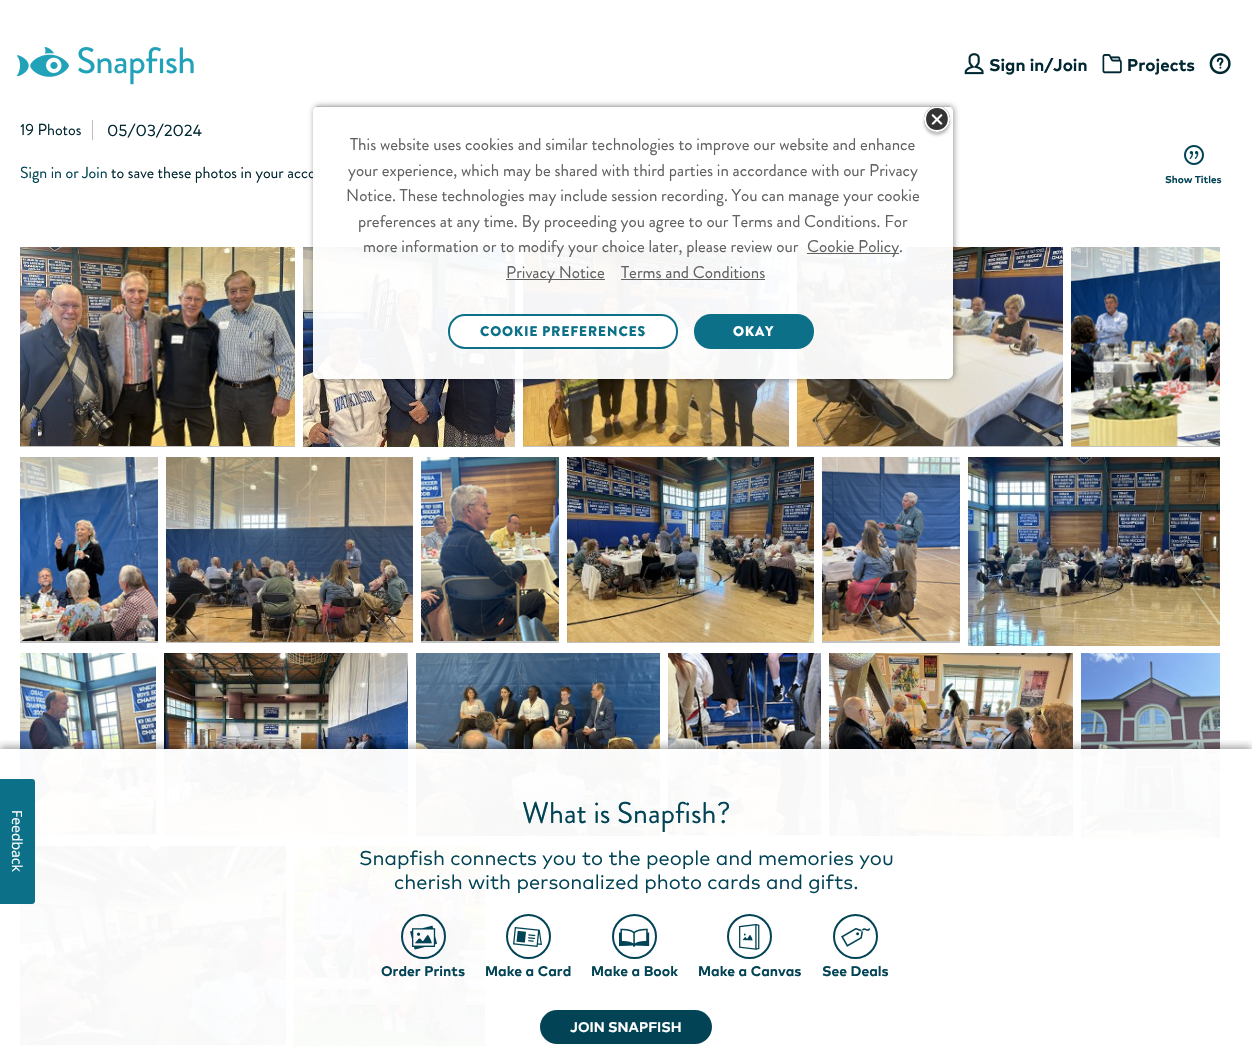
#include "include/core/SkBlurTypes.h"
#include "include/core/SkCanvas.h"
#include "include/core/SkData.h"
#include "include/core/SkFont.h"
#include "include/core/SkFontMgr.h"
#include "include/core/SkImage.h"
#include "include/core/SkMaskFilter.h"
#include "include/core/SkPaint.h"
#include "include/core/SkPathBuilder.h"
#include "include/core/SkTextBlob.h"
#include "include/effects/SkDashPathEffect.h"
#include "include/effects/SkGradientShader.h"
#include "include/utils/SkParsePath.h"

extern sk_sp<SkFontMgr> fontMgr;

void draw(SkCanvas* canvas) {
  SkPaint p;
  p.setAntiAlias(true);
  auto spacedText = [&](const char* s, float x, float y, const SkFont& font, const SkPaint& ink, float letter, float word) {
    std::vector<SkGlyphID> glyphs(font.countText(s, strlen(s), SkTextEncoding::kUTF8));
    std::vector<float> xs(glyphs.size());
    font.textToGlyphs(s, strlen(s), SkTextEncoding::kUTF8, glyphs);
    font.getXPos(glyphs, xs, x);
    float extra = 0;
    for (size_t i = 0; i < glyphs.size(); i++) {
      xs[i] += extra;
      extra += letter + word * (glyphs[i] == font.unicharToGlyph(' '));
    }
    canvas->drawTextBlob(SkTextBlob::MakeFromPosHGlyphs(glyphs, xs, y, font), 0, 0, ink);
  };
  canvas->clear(SK_ColorWHITE);
  canvas->drawImageRect(SkImages::DeferredFromEncodedData(SkData::MakeFromFileName("images/1.png")), SkRect::MakeLTRB(16, 47, 194, 85), SkSamplingOptions());
  canvas->drawImageRect(SkImages::DeferredFromEncodedData(SkData::MakeFromFileName("images/2.png")), SkRect::MakeLTRB(964, 53, 984, 75), SkSamplingOptions());
  canvas->drawImageRect(SkImages::DeferredFromEncodedData(SkData::MakeFromFileName("images/3.png")), SkRect::MakeLTRB(1102, 54, 1122, 74), SkSamplingOptions());
  canvas->drawImageRect(SkImages::DeferredFromEncodedData(SkData::MakeFromFileName("images/4.png")), SkRect::MakeLTRB(1209, 53, 1231, 75), SkSamplingOptions());
  p.setColor(SkColorSetRGB(190, 190, 190));
  canvas->drawRect(SkRect::MakeLTRB(92, 120, 93, 140), p);
  canvas->drawImageRect(SkImages::DeferredFromEncodedData(SkData::MakeFromFileName("images/5.png")), SkRect::MakeLTRB(1184, 145, 1204, 165), SkSamplingOptions());
  p.setColor(SkColorSetRGB(194, 194, 194));
  canvas->drawRect(SkRect::MakeLTRB(20, 446, 295, 447), p);
  canvas->drawImageRect(SkImages::DeferredFromEncodedData(SkData::MakeFromFileName("images/6.png")), SkRect::MakeLTRB(20, 247, 295, 446), SkSamplingOptions());
  canvas->drawImageRect(SkImages::DeferredFromEncodedData(SkData::MakeFromFileName("images/7.png")), SkRect::MakeLTRB(303, 247, 515, 447), SkSamplingOptions());
  canvas->drawRect(SkRect::MakeLTRB(523, 446, 789, 447), p);
  canvas->drawImageRect(SkImages::DeferredFromEncodedData(SkData::MakeFromFileName("images/8.png")), SkRect::MakeLTRB(523, 247, 789, 446), SkSamplingOptions());
  canvas->drawRect(SkRect::MakeLTRB(797, 446, 1063, 447), p);
  canvas->drawImageRect(SkImages::DeferredFromEncodedData(SkData::MakeFromFileName("images/9.png")), SkRect::MakeLTRB(797, 247, 1063, 446), SkSamplingOptions());
  canvas->drawRect(SkRect::MakeLTRB(1071, 446, 1220, 447), p);
  canvas->drawImageRect(SkImages::DeferredFromEncodedData(SkData::MakeFromFileName("images/10.png")), SkRect::MakeLTRB(1071, 247, 1220, 446), SkSamplingOptions());
  canvas->drawRect(SkRect::MakeLTRB(20, 641, 158, 643), p);
  canvas->drawImageRect(SkImages::DeferredFromEncodedData(SkData::MakeFromFileName("images/11.png")), SkRect::MakeLTRB(20, 457, 158, 641), SkSamplingOptions());
  canvas->drawRect(SkRect::MakeLTRB(166, 642, 413, 643), p);
  canvas->drawImageRect(SkImages::DeferredFromEncodedData(SkData::MakeFromFileName("images/12.png")), SkRect::MakeLTRB(166, 457, 413, 642), SkSamplingOptions());
  canvas->drawRect(SkRect::MakeLTRB(421, 641, 559, 643), p);
  canvas->drawImageRect(SkImages::DeferredFromEncodedData(SkData::MakeFromFileName("images/13.png")), SkRect::MakeLTRB(421, 457, 559, 641), SkSamplingOptions());
  canvas->drawRect(SkRect::MakeLTRB(567, 642, 814, 643), p);
  canvas->drawImageRect(SkImages::DeferredFromEncodedData(SkData::MakeFromFileName("images/14.png")), SkRect::MakeLTRB(567, 457, 814, 642), SkSamplingOptions());
  canvas->drawRect(SkRect::MakeLTRB(822, 641, 960, 643), p);
  canvas->drawImageRect(SkImages::DeferredFromEncodedData(SkData::MakeFromFileName("images/15.png")), SkRect::MakeLTRB(822, 457, 960, 641), SkSamplingOptions());
  canvas->drawImageRect(SkImages::DeferredFromEncodedData(SkData::MakeFromFileName("images/16.png")), SkRect::MakeLTRB(968, 457, 1220, 646), SkSamplingOptions());
  canvas->drawRect(SkRect::MakeLTRB(35, 834, 156, 836), p);
  canvas->drawImageRect(SkImages::DeferredFromEncodedData(SkData::MakeFromFileName("images/17.png")), SkRect::MakeLTRB(20, 653, 156, 834), SkSamplingOptions());
  canvas->drawImageRect(SkImages::DeferredFromEncodedData(SkData::MakeFromFileName("images/18.png")), SkRect::MakeLTRB(164, 653, 408, 836), SkSamplingOptions());
  canvas->drawImageRect(SkImages::DeferredFromEncodedData(SkData::MakeFromFileName("images/19.png")), SkRect::MakeLTRB(416, 653, 660, 836), SkSamplingOptions());
  canvas->drawRect(SkRect::MakeLTRB(668, 835, 821, 836), p);
  canvas->drawImageRect(SkImages::DeferredFromEncodedData(SkData::MakeFromFileName("images/20.png")), SkRect::MakeLTRB(668, 653, 821, 835), SkSamplingOptions());
  canvas->drawImageRect(SkImages::DeferredFromEncodedData(SkData::MakeFromFileName("images/21.png")), SkRect::MakeLTRB(829, 653, 1073, 836), SkSamplingOptions());
  canvas->drawImageRect(SkImages::DeferredFromEncodedData(SkData::MakeFromFileName("images/22.png")), SkRect::MakeLTRB(1081, 653, 1220, 838), SkSamplingOptions());
  canvas->drawRect(SkRect::MakeLTRB(20, 1045, 286, 1046), p);
  canvas->drawImageRect(SkImages::DeferredFromEncodedData(SkData::MakeFromFileName("images/23.png")), SkRect::MakeLTRB(20, 846, 286, 1045), SkSamplingOptions());
  canvas->drawImageRect(SkImages::DeferredFromEncodedData(SkData::MakeFromFileName("images/24.png")), SkRect::MakeLTRB(294, 846, 485, 1046), SkSamplingOptions());
  canvas->save();
  canvas->clipRect(SkRect::MakeLTRB(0, 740, 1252, 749));
  p.setColor(SkColorSetARGB(102, 0, 0, 0));
  p.setMaskFilter(SkMaskFilter::MakeBlur(kNormal_SkBlurStyle, 4));
  canvas->drawRect(SkRect::MakeLTRB(0, 747, 1252, 1062), p);
  p.setMaskFilter(nullptr);
  canvas->restore();
  p.setColor(SkColorSetARGB(247, 255, 255, 255));
  canvas->drawRect(SkRect::MakeLTRB(20, 749, 1220, 1046), p);
  p.setStyle(SkPaint::kStroke_Style);
  p.setStrokeWidth(2);
  p.setColor(SkColorSetRGB(2, 68, 85));
  canvas->drawCircle(423.5f, 936.5f, 21.5f, p);
  canvas->drawImageRect(SkImages::DeferredFromEncodedData(SkData::MakeFromFileName("images/25.png")), SkRect::MakeLTRB(410, 925, 437, 950), SkSamplingOptions());
  canvas->drawCircle(528.5f, 936.5f, 21.5f, p);
  canvas->drawImageRect(SkImages::DeferredFromEncodedData(SkData::MakeFromFileName("images/26.png")), SkRect::MakeLTRB(513, 927, 542, 947), SkSamplingOptions());
  canvas->drawCircle(634.5f, 936.5f, 21.5f, p);
  canvas->drawImageRect(SkImages::DeferredFromEncodedData(SkData::MakeFromFileName("images/27.png")), SkRect::MakeLTRB(619, 928, 650, 947), SkSamplingOptions());
  canvas->drawCircle(749.5f, 936.5f, 21.5f, p);
  canvas->drawImageRect(SkImages::DeferredFromEncodedData(SkData::MakeFromFileName("images/28.png")), SkRect::MakeLTRB(739, 923, 760, 950), SkSamplingOptions());
  canvas->drawCircle(855.5f, 936.5f, 21.5f, p);
  canvas->drawImageRect(SkImages::DeferredFromEncodedData(SkData::MakeFromFileName("images/29.png")), SkRect::MakeLTRB(841, 927, 870, 947), SkSamplingOptions());
  p.setStyle(SkPaint::kFill_Style);
  canvas->drawRoundRect(SkRect::MakeLTRB(540, 1010, 712, 1044), 17, 17, p);
  canvas->save();
  canvas->clipPath(SkPathBuilder(SkPathFillType::kEvenOdd).moveTo(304, 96).lineTo(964, 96).lineTo(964, 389).lineTo(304, 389).close().moveTo(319, 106).lineTo(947, 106).cubicTo(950.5f, 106, 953, 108.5f, 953, 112).lineTo(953, 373).cubicTo(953, 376.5f, 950.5f, 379, 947, 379).lineTo(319, 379).cubicTo(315.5f, 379, 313, 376.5f, 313, 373).lineTo(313, 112).cubicTo(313, 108.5f, 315.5f, 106, 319, 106).close().detach(), true);
  p.setColor(SkColorSetARGB(77, 0, 0, 0));
  p.setMaskFilter(SkMaskFilter::MakeBlur(kNormal_SkBlurStyle, 2.5f));
  canvas->drawRoundRect(SkRect::MakeLTRB(313, 105, 955, 380), 7, 7, p);
  p.setMaskFilter(nullptr);
  canvas->restore();
  p.setColor(SkColorSetRGB(12, 112, 136));
  canvas->drawPath(SkPathBuilder().moveTo(35, 782).lineTo(35, 901).cubicTo(35, 902, 34, 904, 32, 904).lineTo(0, 904).lineTo(0, 779).lineTo(32, 779).cubicTo(34, 779, 35, 780, 35, 782).close().detach(), p);
  SkFont font1(fontMgr->matchFamilyStyle("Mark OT", SkFontStyle::Bold()), 17);
  font1.setSubpixel(true);
  p.setColor(SkColorSetRGB(1, 40, 50));
  canvas->drawString("Sign in/Join", 989, 71, font1, p);
  canvas->drawString("Projects", 1127, 71, font1, p);
  SkFont font2(fontMgr->matchFamilyStyle("Brandon Grotesque", SkFontStyle::Normal()), 16);
  font2.setSubpixel(true);
  canvas->drawString("19 Photos", 20, 135, font2, p);
  SkFont font3(fontMgr->matchFamilyStyle("Mark OT", SkFontStyle::Normal()), 16);
  font3.setSubpixel(true);
  canvas->drawString("05/03/2024", 107, 136, font3, p);
  p.setColor(SkColorSetRGB(2, 68, 85));
  canvas->drawString("Sign in or Join", 20, 178, font2, p);
  p.setColor(SkColorSetRGB(1, 40, 50));
  canvas->drawString("to save these photos in your acco", 111, 178, font2, p);
  SkFont font4(fontMgr->matchFamilyStyle("Mark OT", SkFontStyle::Bold()), 10);
  font4.setSubpixel(true);
  p.setColor(SkColorSetRGB(2, 68, 85));
  canvas->drawString("Show Titles", 1165, 183, font4, p);
  SkFont font5(fontMgr->matchFamilyStyle("Brandon Grotesque", SkFontStyle::Normal()), 30);
  font5.setSubpixel(true);
  canvas->drawString("What is Snapfish?", 522, 823, font5, p);
  SkFont font6(fontMgr->matchFamilyStyle("Mark OT", SkFontStyle::Normal()), 20);
  font6.setSubpixel(true);
  canvas->drawString("Snapfish connects you to the people and memories you", 359, 865, font6, p);
  canvas->drawString("cherish with personalized photo cards and gifts.", 394, 889, font6, p);
  SkFont font7(fontMgr->matchFamilyStyle("Mark OT", SkFontStyle::Bold()), 14);
  font7.setSubpixel(true);
  canvas->drawString("Order Prints", 381, 976, font7, p);
  canvas->drawString("Make a Card", 485, 976, font7, p);
  canvas->drawString("Make a Book", 591, 976, font7, p);
  canvas->drawString("Make a Canvas", 698, 976, font7, p);
  canvas->drawString("See Deals", 822, 976, font7, p);
  p.setColor(SK_ColorWHITE);
  canvas->drawString("JOIN SNAPFISH", 570, 1032, font7, p);
  p.setColor(SkColorSetARGB(242, 255, 255, 255));
  canvas->drawRoundRect(SkRect::MakeLTRB(313, 106, 953, 379), 6, 6, p);
  p.setColor(SkColorSetRGB(185, 185, 185));
  canvas->drawRect(SkRect::MakeLTRB(316, 106, 950, 107), p);
  p.setColor(SkColorSetARGB(64, 0, 0, 0));
  p.setMaskFilter(SkMaskFilter::MakeBlur(kNormal_SkBlurStyle, 1.5f));
  canvas->drawRoundRect(SkRect::MakeLTRB(924, 109, 950, 135), 13, 13, p);
  p.setMaskFilter(nullptr);
  p.setColor(SkColorSetRGB(53, 53, 53));
  canvas->drawPath(SkPathBuilder().moveTo(942, 107).cubicTo(946.5f, 109, 950, 113.5f, 950, 119).cubicTo(950, 126, 944, 132, 937, 132).cubicTo(930, 132, 924, 126, 924, 119).cubicTo(924, 113.5f, 927.5f, 109, 932, 107).close().detach(), p);
  p.setColor(SK_ColorWHITE);
  canvas->drawPath(SkPathBuilder(SkPathFillType::kEvenOdd).moveTo(942, 107).cubicTo(946.5f, 109, 950, 113.5f, 950, 119).cubicTo(950, 126, 944, 132, 937, 132).cubicTo(930, 132, 924, 126, 924, 119).cubicTo(924, 113.5f, 927.5f, 109, 932, 107).close().moveTo(937, 108).cubicTo(922.5f, 108, 922.5f, 130, 937, 130).cubicTo(951.5f, 130, 951.5f, 108, 937, 108).close().detach(), p);
  canvas->drawPath(SkPathBuilder().moveTo(942, 114.5f).cubicTo(942.5f, 115, 942.5f, 115.5f, 942, 116).lineTo(933.5f, 124.5f).cubicTo(933, 124.5f, 932.5f, 124.5f, 932, 124.5f).cubicTo(931.5f, 124, 931.5f, 123.5f, 932, 123).lineTo(940.5f, 114.5f).cubicTo(941, 114, 941.5f, 114, 942, 114.5f).close().detach(), p);
  canvas->drawPath(SkPathBuilder().moveTo(932, 114.5f).cubicTo(932.5f, 114, 933, 114, 933.5f, 114.5f).lineTo(942, 123).cubicTo(942.5f, 123.5f, 942.5f, 124, 942, 124.5f).cubicTo(941.5f, 124.5f, 941, 124.5f, 940.5f, 124.5f).lineTo(932, 116).cubicTo(931.5f, 115.5f, 931.5f, 115, 932, 114.5f).close().detach(), p);
  SkFont font8(fontMgr->matchFamilyStyle("Brandon Grotesque", SkFontStyle::Normal()), 17);
  font8.setSubpixel(true);
  p.setColor(SkColorSetRGB(97, 97, 97));
  canvas->drawString("This website uses cookies and similar technologies to improve our website and enhance", 350, 150, font8, p);
  canvas->drawString("your experience, which may be shared with third parties in accordance with our Privacy", 348, 176, font8, p);
  canvas->drawString("Notice. These technologies may include session recording. You can manage your cookie", 346, 201, font8, p);
  canvas->drawString("preferences at any time. By proceeding you agree to our Terms and Conditions. For", 358, 227, font8, p);
  canvas->drawString("more information or to modify your choice later, please review our", 363, 252, font8, p);
  canvas->drawRect(SkRect::MakeLTRB(807, 253, 899, 254), p);
  canvas->drawString("Cookie Policy.", 807, 252, font8, p);
  canvas->drawRect(SkRect::MakeLTRB(506, 279, 605, 280), p);
  canvas->drawString("Privacy Notice", 506, 278, font8, p);
  canvas->drawString("Terms and Conditions", 621, 278, font8, p);
  canvas->drawRect(SkRect::MakeLTRB(621, 279, 765, 280), p);
  p.setColor(SK_ColorWHITE);
  canvas->drawRoundRect(SkRect::MakeLTRB(449, 315, 677, 348), 16, 16, p);
  p.setStyle(SkPaint::kStroke_Style);
  p.setColor(SkColorSetRGB(12, 112, 136));
  canvas->drawRoundRect(SkRect::MakeLTRB(449, 315, 677, 348), 16, 16, p);
  SkFont font9(fontMgr->matchFamilyStyle("Brandon Grotesque", SkFontStyle(900, SkFontStyle::kNormal_Width, SkFontStyle::kUpright_Slant)), 14);
  font9.setSubpixel(true);
  p.setStyle(SkPaint::kFill_Style);
  spacedText("COOKIE PREFERENCES", 480, 336, font9, p, 0.75f, 0);
  canvas->drawRoundRect(SkRect::MakeLTRB(694, 314, 814, 349), 17, 17, p);
  p.setColor(SK_ColorWHITE);
  spacedText("OKAY", 733, 336, font9, p, 0.75f, 0);
  SkFont font10(fontMgr->matchFamilyStyle("Open Sans", SkFontStyle::Normal()), 14);
  font10.setSubpixel(true);
  canvas->save();
  canvas->rotate(90, 12, 810);
  canvas->drawString("Feedback", 12, 810, font10, p);
  canvas->restore();
}
